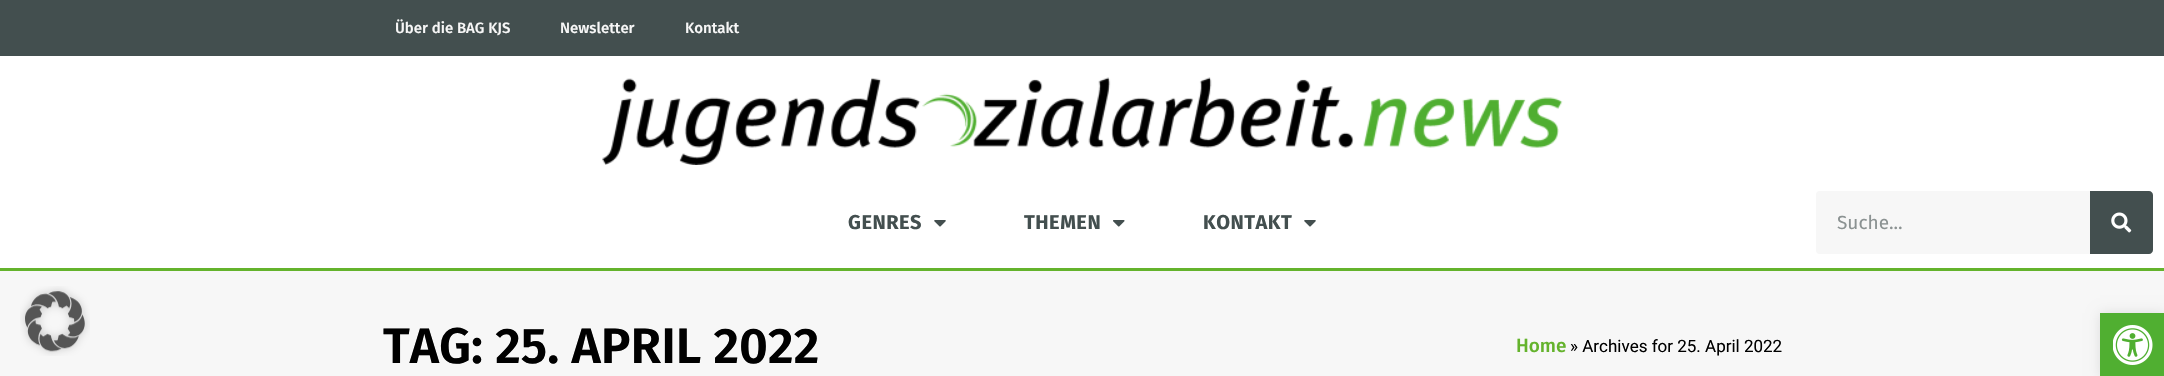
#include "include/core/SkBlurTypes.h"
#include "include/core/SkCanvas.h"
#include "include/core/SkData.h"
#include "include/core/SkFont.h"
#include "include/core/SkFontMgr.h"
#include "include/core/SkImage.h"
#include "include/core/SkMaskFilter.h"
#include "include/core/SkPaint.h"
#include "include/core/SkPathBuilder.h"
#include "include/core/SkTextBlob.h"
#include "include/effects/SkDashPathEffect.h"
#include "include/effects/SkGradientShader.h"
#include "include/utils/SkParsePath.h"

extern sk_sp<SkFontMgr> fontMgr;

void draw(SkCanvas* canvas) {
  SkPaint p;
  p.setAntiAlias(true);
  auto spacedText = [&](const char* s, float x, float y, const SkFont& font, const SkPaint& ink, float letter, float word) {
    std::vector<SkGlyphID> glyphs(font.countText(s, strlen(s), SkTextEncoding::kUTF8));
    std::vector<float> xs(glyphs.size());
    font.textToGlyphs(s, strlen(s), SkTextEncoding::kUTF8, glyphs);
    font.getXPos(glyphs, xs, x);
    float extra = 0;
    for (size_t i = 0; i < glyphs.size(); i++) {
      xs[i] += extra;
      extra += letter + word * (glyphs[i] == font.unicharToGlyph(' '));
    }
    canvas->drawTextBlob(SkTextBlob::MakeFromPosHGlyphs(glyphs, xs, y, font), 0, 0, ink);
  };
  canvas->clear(SK_ColorWHITE);
  p.setColor(SkColorSetRGB(67, 79, 79));
  canvas->drawRect(SkRect::MakeLTRB(0, 0, 2164, 56), p);
  canvas->drawImageRect(SkImages::DeferredFromEncodedData(SkData::MakeFromFileName("images/1.png")), SkRect::MakeLTRB(602, 77, 1563, 165), SkSamplingOptions());
  p.setColor(SkColorSetRGB(100, 179, 44));
  canvas->drawRect(SkRect::MakeLTRB(0, 268, 2164, 271), p);
  canvas->drawImageRect(SkImages::DeferredFromEncodedData(SkData::MakeFromFileName("images/2.png")), SkRect::MakeLTRB(934, 220, 946, 227), SkSamplingOptions());
  canvas->drawImageRect(SkImages::DeferredFromEncodedData(SkData::MakeFromFileName("images/3.png")), SkRect::MakeLTRB(1113, 220, 1125, 227), SkSamplingOptions());
  canvas->drawImageRect(SkImages::DeferredFromEncodedData(SkData::MakeFromFileName("images/2.png")), SkRect::MakeLTRB(1304, 220, 1316, 227), SkSamplingOptions());
  p.setColor(SkColorSetRGB(247, 247, 247));
  canvas->drawRoundRect(SkRect::MakeLTRB(1816, 191, 2153, 254), 4, 4, p);
  p.setColor(SkColorSetRGB(67, 79, 79));
  canvas->drawPath(SkPathBuilder().moveTo(2090, 191).lineTo(2149, 191).cubicTo(2151, 191, 2153, 193, 2153, 195).lineTo(2153, 250).cubicTo(2153, 252, 2151, 254, 2149, 254).lineTo(2090, 254).close().detach(), p);
  canvas->drawImageRect(SkImages::DeferredFromEncodedData(SkData::MakeFromFileName("images/4.png")), SkRect::MakeLTRB(2111, 212, 2132, 233), SkSamplingOptions());
  p.setColor(SkColorSetRGB(247, 247, 247));
  canvas->drawRect(SkRect::MakeLTRB(0, 271, 2164, 376), p);
  canvas->drawImageRect(SkImages::DeferredFromEncodedData(SkData::MakeFromFileName("images/5.png")), SkRect::MakeLTRB(20, 286, 90, 356), SkSamplingOptions());
  p.setColor(SkColorSetARGB(26, 0, 0, 0));
  p.setMaskFilter(SkMaskFilter::MakeBlur(kNormal_SkBlurStyle, 6));
  canvas->drawRect(SkRect::MakeLTRB(2100, 313, 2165, 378), p);
  p.setMaskFilter(nullptr);
  p.setColor(SkColorSetRGB(80, 175, 49));
  canvas->drawRect(SkRect::MakeLTRB(2100, 313, 2164, 376), p);
  canvas->drawImageRect(SkImages::DeferredFromEncodedData(SkData::MakeFromFileName("images/6.png")), SkRect::MakeLTRB(2113, 325, 2153, 365), SkSamplingOptions());
  SkFont font1(fontMgr->matchFamilyStyle("Fira Sans", SkFontStyle(500, SkFontStyle::kNormal_Width, SkFontStyle::kUpright_Slant)), 15);
  font1.setSubpixel(true);
  p.setColor(SkColorSetRGB(247, 247, 247));
  canvas->drawString("Über die BAG KJS", 395, 33, font1, p);
  canvas->drawString("Newsletter", 560, 33, font1, p);
  canvas->drawString("Kontakt", 685, 33, font1, p);
  SkFont font2(fontMgr->matchFamilyStyle("Fira Sans", SkFontStyle::Bold()), 20);
  font2.setSubpixel(true);
  p.setColor(SkColorSetRGB(67, 79, 79));
  spacedText("GENRES", 848, 229, font2, p, 0.5f, 0);
  spacedText("THEMEN", 1024, 229, font2, p, 0.5f, 0);
  spacedText("KONTAKT", 1203, 229, font2, p, 0.5f, 0);
  SkFont font3(fontMgr->matchFamilyStyle("Fira Sans", SkFontStyle::Normal()), 19);
  font3.setSubpixel(true);
  p.setColor(SkColorSetRGB(139, 146, 146));
  canvas->drawString("Suche...", 1837, 229, font3, p);
  SkFont font4(fontMgr->matchFamilyStyle("Fira Sans", SkFontStyle(600, SkFontStyle::kNormal_Width, SkFontStyle::kUpright_Slant)), 50);
  font4.setSubpixel(true);
  p.setColor(SK_ColorBLACK);
  canvas->drawString("TAG: 25. APRIL 2022", 383, 363, font4, p);
  SkFont font5(fontMgr->matchFamilyStyle("Fira Sans", SkFontStyle(500, SkFontStyle::kNormal_Width, SkFontStyle::kUpright_Slant)), 19);
  font5.setSubpixel(true);
  p.setColor(SkColorSetRGB(100, 179, 44));
  canvas->drawString("Home", 1516, 352, font5, p);
  SkFont font6(fontMgr->matchFamilyStyle("Roboto", SkFontStyle::Normal()), 17);
  font6.setSubpixel(true);
  p.setColor(SK_ColorBLACK);
  canvas->drawString("» Archives for 25. April 2022", 1570, 352, font6, p);
}
